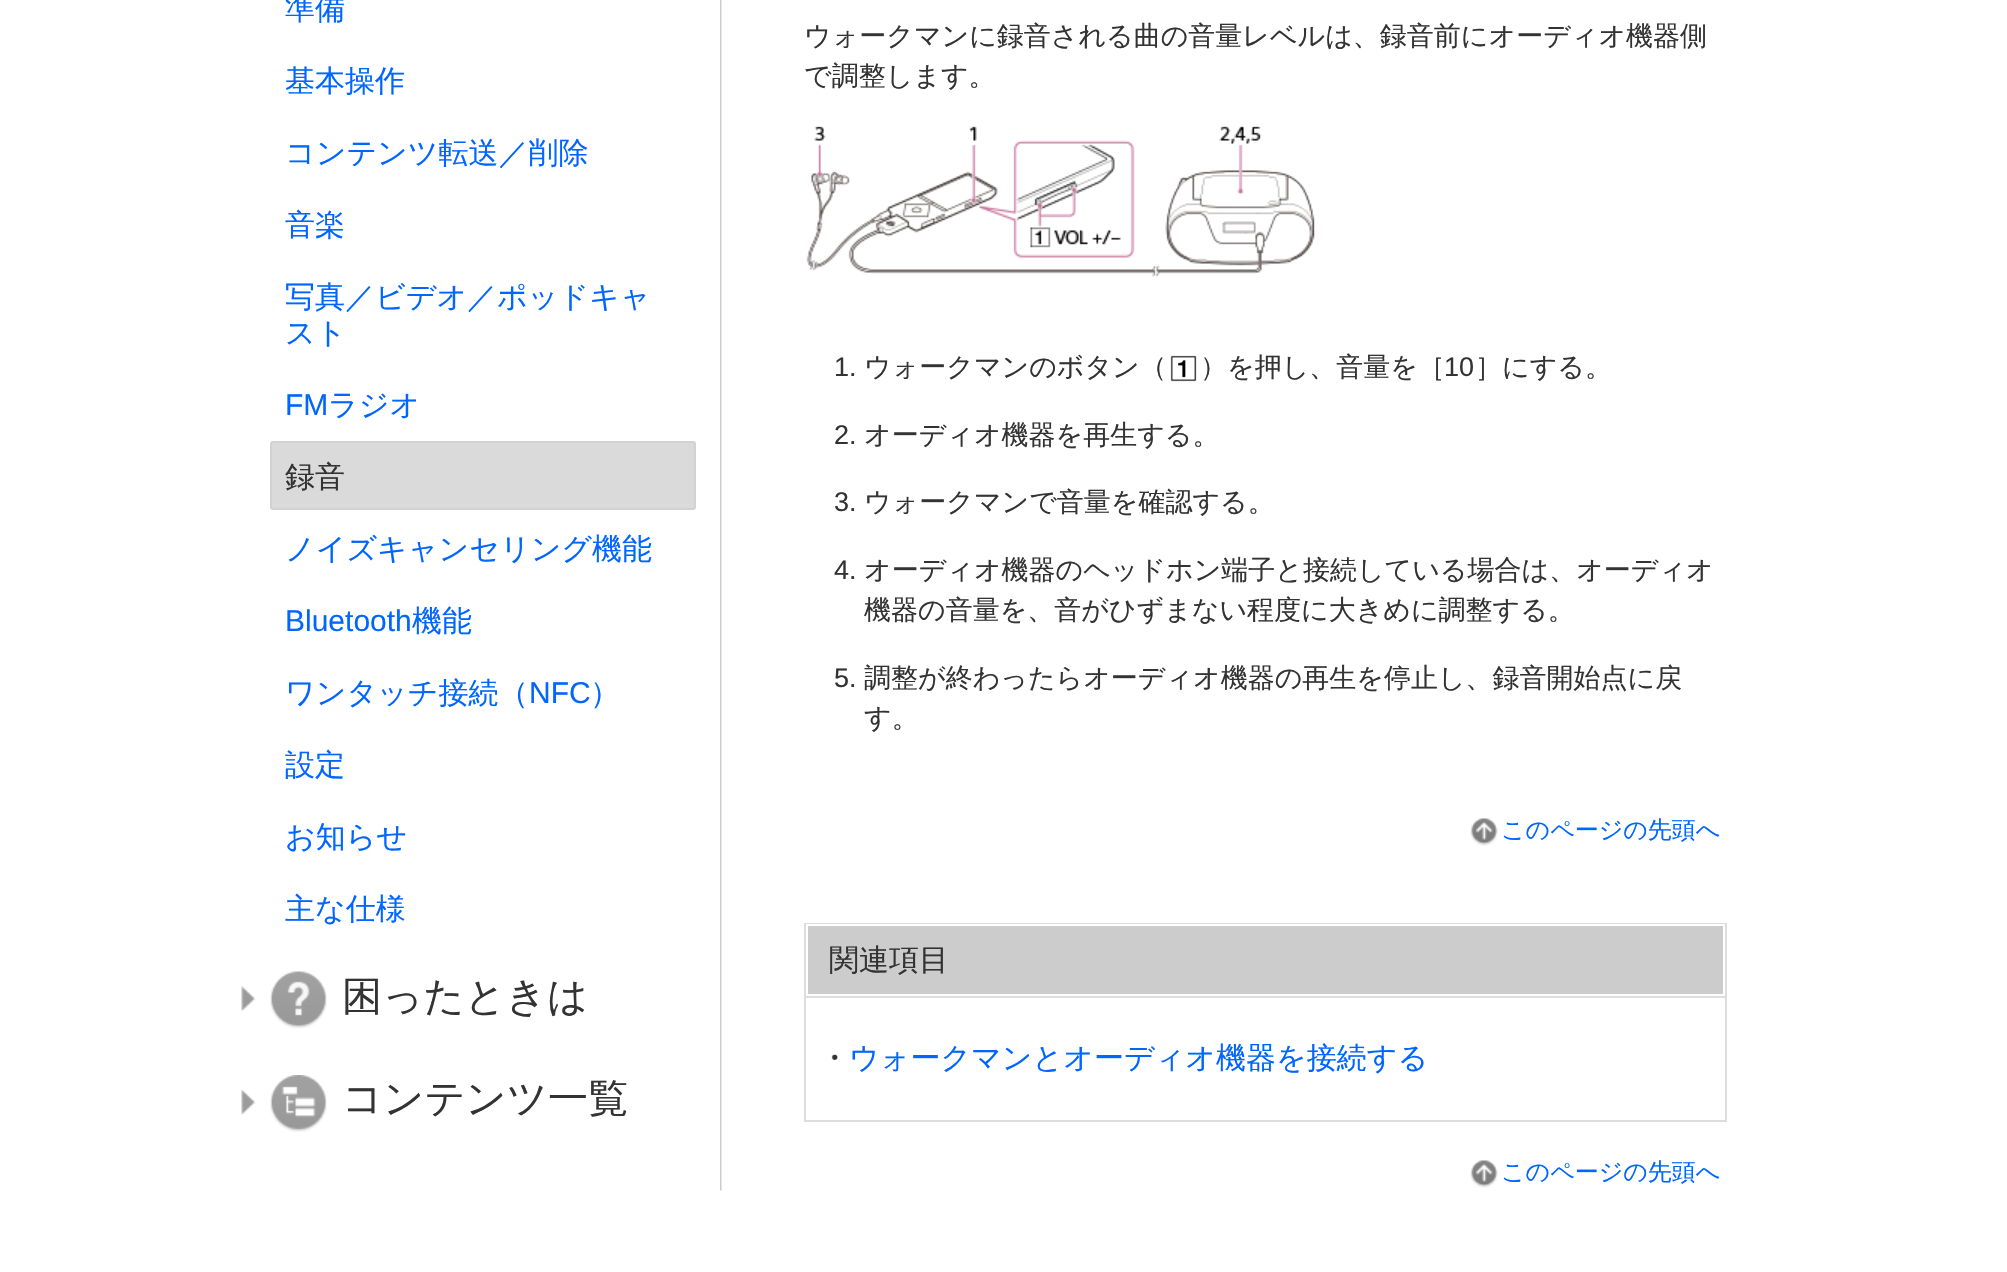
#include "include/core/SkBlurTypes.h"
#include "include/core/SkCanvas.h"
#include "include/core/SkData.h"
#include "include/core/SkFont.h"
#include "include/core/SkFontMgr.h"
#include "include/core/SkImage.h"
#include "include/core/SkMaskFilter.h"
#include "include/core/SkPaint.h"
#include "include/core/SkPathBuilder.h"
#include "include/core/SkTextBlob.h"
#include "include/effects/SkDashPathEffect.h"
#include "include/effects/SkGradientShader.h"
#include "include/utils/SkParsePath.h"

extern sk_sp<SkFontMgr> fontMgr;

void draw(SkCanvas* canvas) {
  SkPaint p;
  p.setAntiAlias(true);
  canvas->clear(SK_ColorWHITE);
  canvas->drawImageRect(SkImages::DeferredFromEncodedData(SkData::MakeFromFileName("images/1.png")), SkRect::MakeLTRB(720, 0, 722, 1191), SkSamplingOptions());
  p.setColor(SkColorSetRGB(218, 218, 218));
  canvas->drawRoundRect(SkRect::MakeLTRB(271, 442, 695, 509), 2, 2, p);
  p.setStyle(SkPaint::kStroke_Style);
  p.setStrokeWidth(2);
  p.setColor(SkColorSetRGB(210, 210, 210));
  canvas->drawRoundRect(SkRect::MakeLTRB(271, 442, 695, 509), 2, 2, p);
  canvas->drawImageRect(SkImages::DeferredFromEncodedData(SkData::MakeFromFileName("images/2.png")), SkRect::MakeLTRB(241, 986, 256, 1011), SkSamplingOptions());
  canvas->drawImageRect(SkImages::DeferredFromEncodedData(SkData::MakeFromFileName("images/3.png")), SkRect::MakeLTRB(270, 971, 327, 1029), SkSamplingOptions());
  canvas->drawImageRect(SkImages::DeferredFromEncodedData(SkData::MakeFromFileName("images/4.png")), SkRect::MakeLTRB(241, 1090, 256, 1115), SkSamplingOptions());
  canvas->drawImageRect(SkImages::DeferredFromEncodedData(SkData::MakeFromFileName("images/5.png")), SkRect::MakeLTRB(270, 1075, 327, 1132), SkSamplingOptions());
  canvas->drawImageRect(SkImages::DeferredFromEncodedData(SkData::MakeFromFileName("images/6.png")), SkRect::MakeLTRB(806, 126, 1315, 277), SkSamplingOptions());
  canvas->drawImageRect(SkImages::DeferredFromEncodedData(SkData::MakeFromFileName("images/7.png")), SkRect::MakeLTRB(1170, 355, 1197, 382), SkSamplingOptions());
  canvas->drawImageRect(SkImages::DeferredFromEncodedData(SkData::MakeFromFileName("images/8.png")), SkRect::MakeLTRB(1470, 818, 1498, 846), SkSamplingOptions());
  p.setColor(SkColorSetRGB(221, 221, 221));
  canvas->drawRect(SkRect::MakeLTRB(805, 924, 1726, 1121), p);
  p.setStyle(SkPaint::kFill_Style);
  p.setColor(SkColorSetRGB(204, 204, 204));
  canvas->drawRect(SkRect::MakeLTRB(807, 925, 1724, 995), p);
  p.setStyle(SkPaint::kStroke_Style);
  p.setColor(SK_ColorWHITE);
  canvas->drawRect(SkRect::MakeLTRB(807, 925, 1724, 995), p);
  p.setStyle(SkPaint::kFill_Style);
  p.setColor(SkColorSetRGB(221, 221, 221));
  canvas->drawRect(SkRect::MakeLTRB(806, 996, 1725, 998), p);
  canvas->drawImageRect(SkImages::DeferredFromEncodedData(SkData::MakeFromFileName("images/9.png")), SkRect::MakeLTRB(831, 1054, 838, 1060), SkSamplingOptions());
  canvas->drawImageRect(SkImages::DeferredFromEncodedData(SkData::MakeFromFileName("images/8.png")), SkRect::MakeLTRB(1470, 1160, 1498, 1188), SkSamplingOptions());
  SkFont font1(fontMgr->matchFamilyStyle("WenQuanYi Zen Hei", SkFontStyle(500, SkFontStyle::kNormal_Width, SkFontStyle::kUpright_Slant)), 30);
  font1.setSubpixel(true);
  p.setColor(SkColorSetRGB(0, 102, 255));
  canvas->drawString("準備", 285, 19, font1, p);
  canvas->drawString("基本操作", 285, 91, font1, p);
  canvas->drawString("コンテンツ転送／削除", 285, 163, font1, p);
  canvas->drawString("音楽", 285, 235, font1, p);
  canvas->drawString("写真／ビデオ／ポッドキャ", 285, 307, font1, p);
  canvas->drawString("スト", 285, 343, font1, p);
  SkFont font2(fontMgr->matchFamilyStyle("Liberation Sans", SkFontStyle::Normal()), 30);
  font2.setSubpixel(true);
  canvas->drawString("FM", 285, 415, font2, p);
  canvas->drawString("ラジオ", 328, 415, font1, p);
  p.setColor(SkColorSetRGB(51, 51, 51));
  canvas->drawString("録音", 285, 487, font1, p);
  p.setColor(SkColorSetRGB(0, 102, 255));
  canvas->drawString("ノイズキャンセリング機能", 285, 559, font1, p);
  canvas->drawString("Bluetooth", 285, 631, font2, p);
  canvas->drawString("機能", 412, 631, font1, p);
  canvas->drawString("ワンタッチ接続（", 285, 703, font1, p);
  canvas->drawString("NFC", 529, 703, font2, p);
  canvas->drawString("）", 590, 703, font1, p);
  canvas->drawString("設定", 285, 775, font1, p);
  canvas->drawString("お知らせ", 285, 847, font1, p);
  canvas->drawString("主な仕様", 285, 919, font1, p);
  SkFont font3(fontMgr->matchFamilyStyle("WenQuanYi Zen Hei", SkFontStyle(500, SkFontStyle::kNormal_Width, SkFontStyle::kUpright_Slant)), 40.25f);
  font3.setSubpixel(true);
  p.setColor(SkColorSetRGB(51, 51, 51));
  canvas->drawString("困ったときは", 342, 1010, font3, p);
  canvas->drawString("コンテンツ一覧", 342, 1112, font3, p);
  SkFont font4(fontMgr->matchFamilyStyle("WenQuanYi Zen Hei", SkFontStyle(500, SkFontStyle::kNormal_Width, SkFontStyle::kUpright_Slant)), 27);
  font4.setSubpixel(true);
  canvas->drawString("ウォークマンに録音される曲の音量レベルは、録音前にオーディオ機器側", 804, 45, font4, p);
  canvas->drawString("で調整します。", 804, 85, font4, p);
  SkFont font5(fontMgr->matchFamilyStyle("Liberation Sans", SkFontStyle::Normal()), 27);
  font5.setSubpixel(true);
  canvas->drawString("1.", 834, 376, font5, p);
  canvas->drawString("ウォークマンのボタン（", 864, 376, font4, p);
  canvas->drawString("）を押し、音量を［", 1200, 376, font4, p);
  canvas->drawString("10", 1444, 376, font5, p);
  canvas->drawString("］にする。", 1475, 376, font4, p);
  canvas->drawString("2.", 834, 444, font5, p);
  canvas->drawString("オーディオ機器を再生する。", 864, 444, font4, p);
  canvas->drawString("3.", 834, 511, font5, p);
  canvas->drawString("ウォークマンで音量を確認する。", 864, 511, font4, p);
  canvas->drawString("4.", 834, 579, font5, p);
  canvas->drawString("オーディオ機器のヘッドホン端子と接続している場合は、オーディオ", 864, 579, font4, p);
  canvas->drawString("機器の音量を、音がひずまない程度に大きめに調整する。", 864, 619, font4, p);
  canvas->drawString("5.", 834, 687, font5, p);
  canvas->drawString("調整が終わったらオーディオ機器の再生を停止し、録音開始点に戻", 864, 687, font4, p);
  canvas->drawString("す。", 864, 727, font4, p);
  SkFont font6(fontMgr->matchFamilyStyle("WenQuanYi Zen Hei", SkFontStyle(500, SkFontStyle::kNormal_Width, SkFontStyle::kUpright_Slant)), 24);
  font6.setSubpixel(true);
  p.setColor(SkColorSetRGB(0, 102, 255));
  canvas->drawString("このページの先頭へ", 1501, 838, font6, p);
  p.setColor(SkColorSetRGB(51, 51, 51));
  canvas->drawString("関連項目", 829, 970, font1, p);
  p.setColor(SkColorSetRGB(0, 102, 255));
  canvas->drawString("ウォークマンとオーディオ機器を接続する", 849, 1068, font1, p);
  canvas->drawString("このページの先頭へ", 1501, 1180, font6, p);
}
